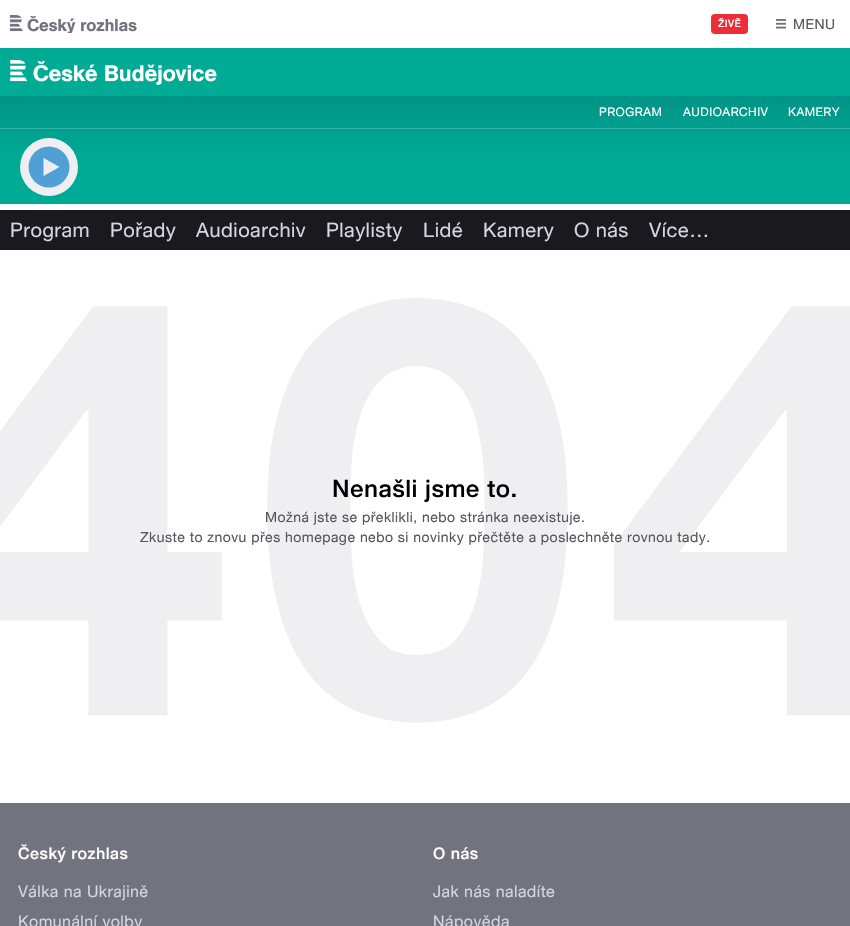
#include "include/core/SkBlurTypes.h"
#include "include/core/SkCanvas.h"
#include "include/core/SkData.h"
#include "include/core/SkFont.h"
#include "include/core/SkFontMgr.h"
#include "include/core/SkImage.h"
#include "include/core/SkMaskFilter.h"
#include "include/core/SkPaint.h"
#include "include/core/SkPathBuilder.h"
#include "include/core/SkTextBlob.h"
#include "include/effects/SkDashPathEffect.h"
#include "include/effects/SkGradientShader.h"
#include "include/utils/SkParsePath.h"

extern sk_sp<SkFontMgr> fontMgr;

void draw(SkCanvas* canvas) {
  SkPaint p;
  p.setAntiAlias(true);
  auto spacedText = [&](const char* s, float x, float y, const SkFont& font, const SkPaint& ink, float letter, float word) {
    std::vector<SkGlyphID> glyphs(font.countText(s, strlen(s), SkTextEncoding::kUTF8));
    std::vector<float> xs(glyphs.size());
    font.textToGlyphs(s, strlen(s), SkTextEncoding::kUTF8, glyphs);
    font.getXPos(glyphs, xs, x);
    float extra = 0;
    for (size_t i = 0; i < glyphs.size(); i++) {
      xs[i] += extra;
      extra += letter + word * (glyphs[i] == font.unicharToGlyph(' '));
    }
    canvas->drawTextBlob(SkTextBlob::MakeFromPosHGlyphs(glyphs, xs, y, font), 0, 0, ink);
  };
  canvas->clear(SK_ColorWHITE);
  canvas->drawImageRect(SkImages::DeferredFromEncodedData(SkData::MakeFromFileName("images/1.png")), SkRect::MakeLTRB(10, 15, 137, 33), SkSamplingOptions());
  p.setColor(SkColorSetRGB(237, 46, 56));
  canvas->drawRoundRect(SkRect::MakeLTRB(711, 14, 748, 34), 4, 4, p);
  canvas->drawImageRect(SkImages::DeferredFromEncodedData(SkData::MakeFromFileName("images/2.png")), SkRect::MakeLTRB(776, 19, 786, 29), SkSamplingOptions());
  p.setColor(SkColorSetRGB(0, 171, 150));
  canvas->drawRect(SkRect::MakeLTRB(0, 48, 850, 96), p);
  canvas->drawImageRect(SkImages::DeferredFromEncodedData(SkData::MakeFromFileName("images/3.png")), SkRect::MakeLTRB(10, 60, 217, 85), SkSamplingOptions());
  {
    const SkColor colors[] = {SkColorSetRGB(0, 147, 134), SkColorSetRGB(0, 171, 150)};
    const float stops[] = {0, 0.6f};
    const SkPoint ends[] = {{425, 96}, {425, 204}};
    p.setShader(SkGradientShader::MakeLinear(ends, colors, stops, 2, SkTileMode::kClamp));
    p.setAlpha(255);
  }
  canvas->drawRect(SkRect::MakeLTRB(0, 96, 850, 204), p);
  p.setShader(nullptr);
  p.setColor(SkColorSetRGB(51, 178, 165));
  canvas->drawRect(SkRect::MakeLTRB(0, 128, 850, 129), p);
  p.setColor(SkColorSetRGB(239, 239, 242));
  canvas->drawCircle(49, 167, 29, p);
  p.setColor(SkColorSetRGB(81, 159, 215));
  canvas->drawCircle(49, 167, 20.5f, p);
  p.setColor(SkColorSetRGB(239, 239, 242));
  canvas->drawPath(SkPathBuilder().moveTo(43.5f, 158).lineTo(59.5f, 167).lineTo(43.5f, 176).close().detach(), p);
  p.setColor(SkColorSetRGB(26, 26, 30));
  canvas->drawRect(SkRect::MakeLTRB(0, 210, 850, 250), p);
  canvas->drawImageRect(SkImages::DeferredFromEncodedData(SkData::MakeFromFileName("images/4.png")), SkRect::MakeLTRB(0, 298, 850, 723), SkSamplingOptions());
  p.setColor(SkColorSetRGB(115, 115, 127));
  canvas->drawRect(SkRect::MakeLTRB(0, 803, 850, 926), p);
  SkFont font1(fontMgr->matchFamilyStyle("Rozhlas", SkFontStyle(500, SkFontStyle::kNormal_Width, SkFontStyle::kUpright_Slant)), 10);
  font1.setSubpixel(true);
  p.setColor(SK_ColorWHITE);
  spacedText("ŽIVĚ", 718, 27, font1, p, 0.48f, 0);
  SkFont font2(fontMgr->matchFamilyStyle("Rozhlas", SkFontStyle::Normal()), 14);
  font2.setSubpixel(true);
  p.setColor(SkColorSetRGB(85, 85, 97));
  spacedText("MENU", 793, 29, font2, p, 0.48f, 0);
  SkFont font3(fontMgr->matchFamilyStyle("Rozhlas", SkFontStyle::Normal()), 12);
  font3.setSubpixel(true);
  p.setColor(SK_ColorWHITE);
  spacedText("PROGRAM", 599, 116, font3, p, 0.48f, 0);
  spacedText("AUDIOARCHIV", 683, 116, font3, p, 0.48f, 0);
  spacedText("KAMERY", 788, 116, font3, p, 0.48f, 0);
  SkFont font4(fontMgr->matchFamilyStyle("Rozhlas", SkFontStyle::Normal()), 20);
  font4.setSubpixel(true);
  p.setColor(SkColorSetRGB(214, 214, 222));
  spacedText("Program", 10, 237, font4, p, 0.48f, 0);
  spacedText("Pořady", 110, 237, font4, p, 0.48f, 0);
  spacedText("Audioarchiv", 196, 237, font4, p, 0.48f, 0);
  spacedText("Playlisty", 326, 237, font4, p, 0.48f, 0);
  spacedText("Lidé", 423, 237, font4, p, 0.48f, 0);
  spacedText("Kamery", 483, 237, font4, p, 0.48f, 0);
  spacedText("O nás", 574, 237, font4, p, 0.48f, 0);
  spacedText("Více…", 649, 237, font4, p, 0.48f, 0);
  SkFont font5(fontMgr->matchFamilyStyle("Rozhlas", SkFontStyle(500, SkFontStyle::kNormal_Width, SkFontStyle::kUpright_Slant)), 24);
  font5.setSubpixel(true);
  p.setColor(SK_ColorBLACK);
  spacedText("Nenašli jsme to.", 332, 497, font5, p, 0.48f, 0);
  p.setColor(SkColorSetRGB(85, 85, 97));
  spacedText("Možná jste se překlikli, nebo stránka neexistuje.", 265, 522, font2, p, 0.48f, 0);
  spacedText("Zkuste to znovu přes homepage nebo si novinky přečtěte a poslechněte rovnou tady.", 140, 542, font2, p, 0.48f, 0);
  SkFont font6(fontMgr->matchFamilyStyle("Rozhlas", SkFontStyle(500, SkFontStyle::kNormal_Width, SkFontStyle::kUpright_Slant)), 16);
  font6.setSubpixel(true);
  p.setColor(SK_ColorWHITE);
  spacedText("Český rozhlas", 18, 859, font6, p, 0.48f, 0);
  SkFont font7(fontMgr->matchFamilyStyle("Rozhlas", SkFontStyle::Normal()), 16);
  font7.setSubpixel(true);
  p.setColor(SkColorSetRGB(214, 214, 222));
  spacedText("Válka na Ukrajině", 18, 897, font7, p, 0.48f, 0);
  spacedText("Komunální volby", 18, 927, font7, p, 0.48f, 0);
  p.setColor(SK_ColorWHITE);
  spacedText("O nás", 433, 859, font6, p, 0.48f, 0);
  p.setColor(SkColorSetRGB(214, 214, 222));
  spacedText("Jak nás naladíte", 433, 897, font7, p, 0.48f, 0);
  spacedText("Nápověda", 433, 927, font7, p, 0.48f, 0);
}
